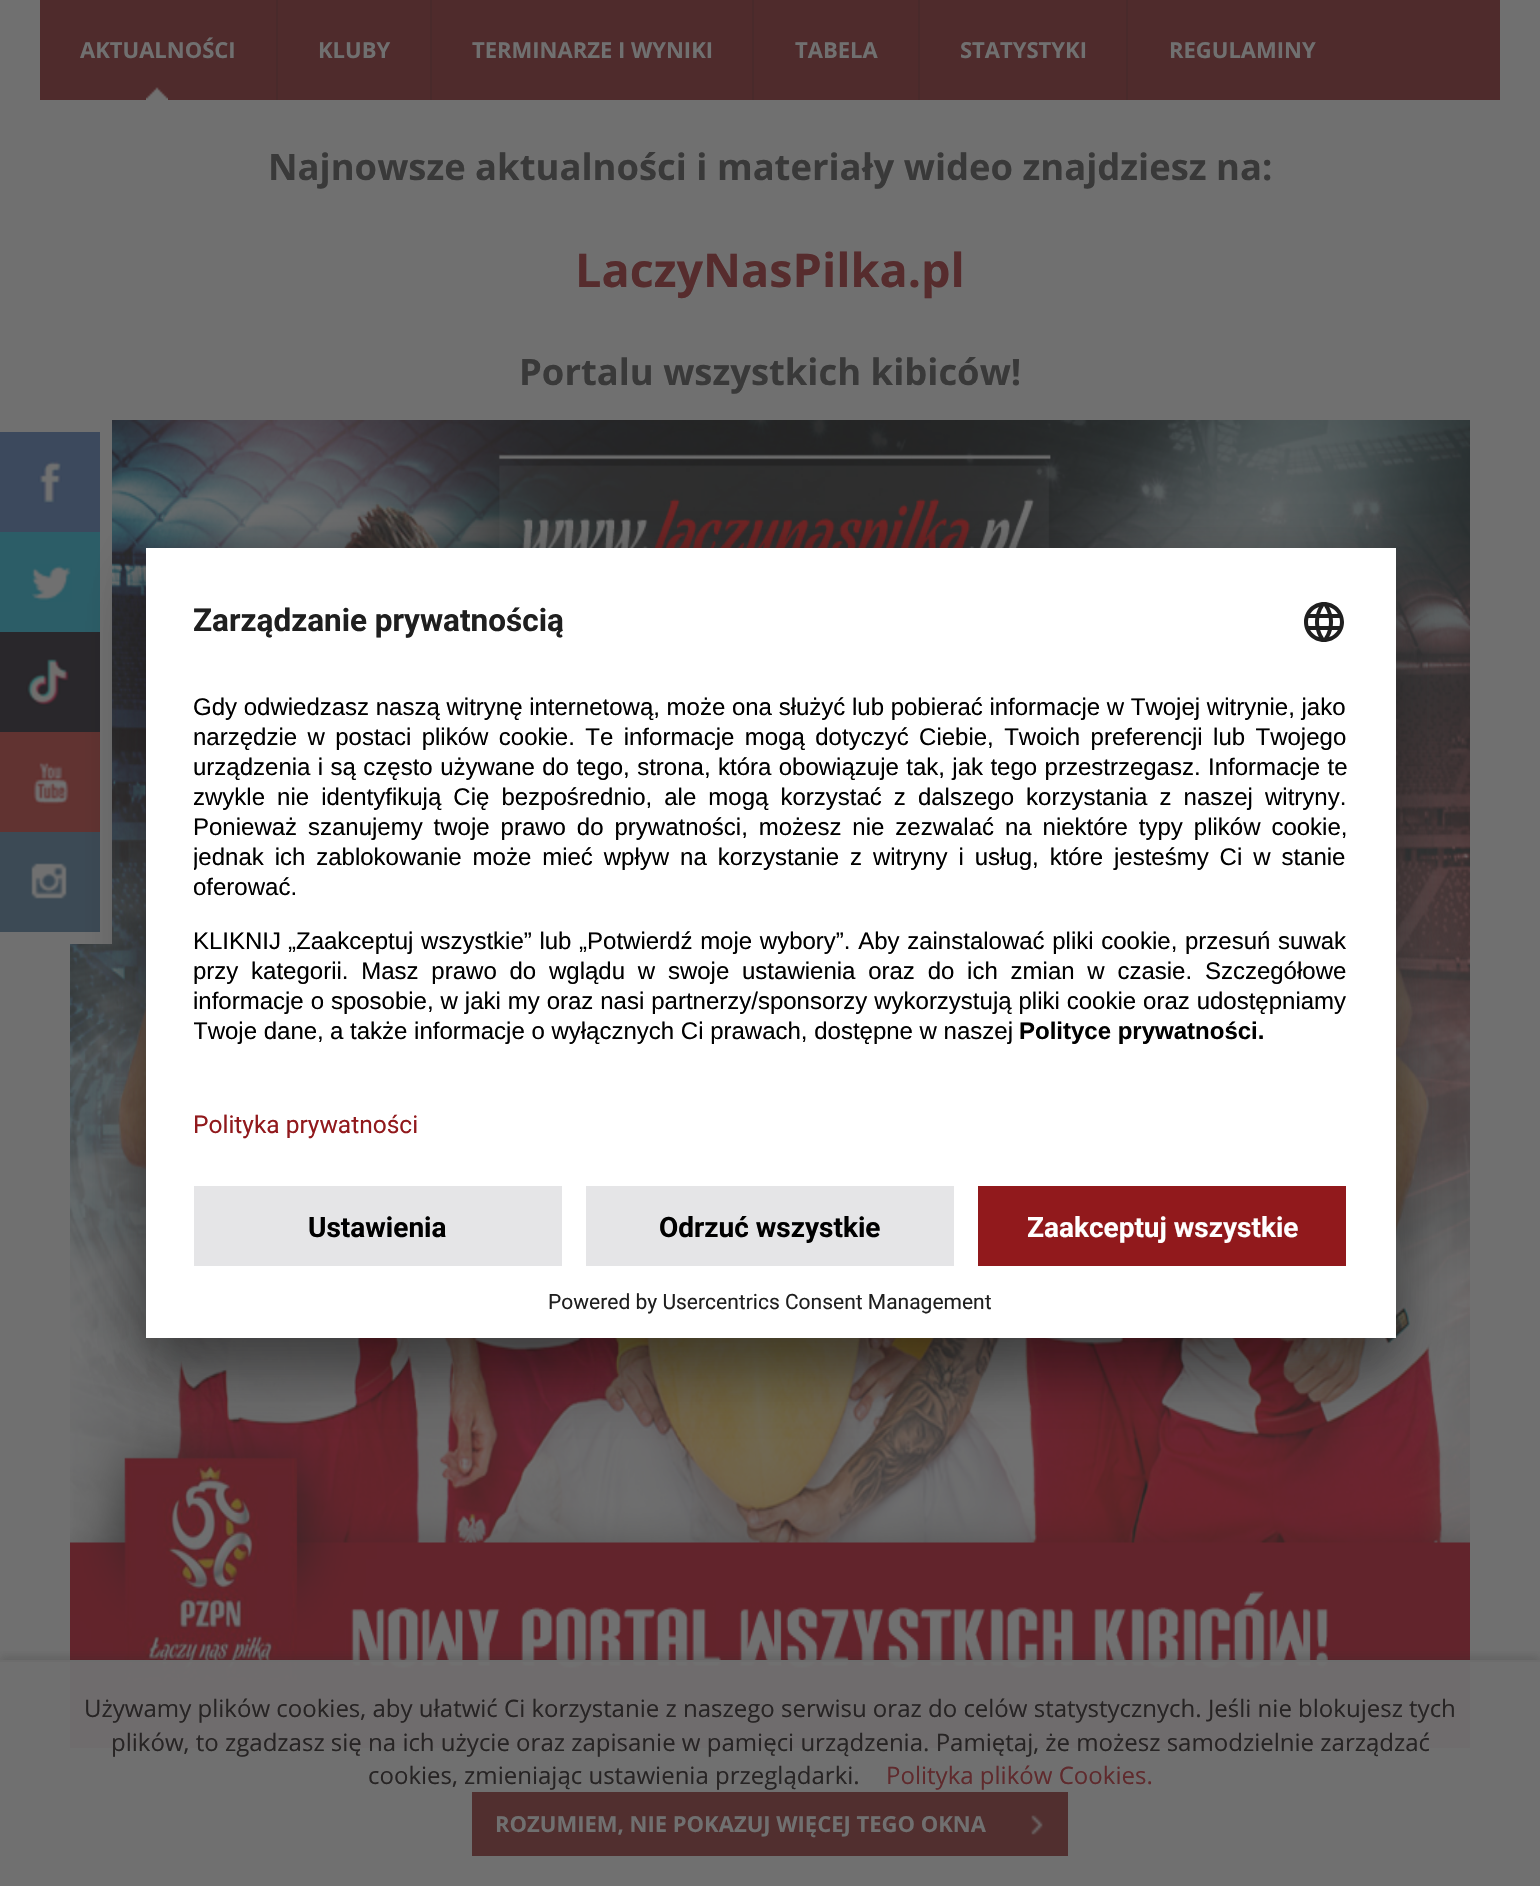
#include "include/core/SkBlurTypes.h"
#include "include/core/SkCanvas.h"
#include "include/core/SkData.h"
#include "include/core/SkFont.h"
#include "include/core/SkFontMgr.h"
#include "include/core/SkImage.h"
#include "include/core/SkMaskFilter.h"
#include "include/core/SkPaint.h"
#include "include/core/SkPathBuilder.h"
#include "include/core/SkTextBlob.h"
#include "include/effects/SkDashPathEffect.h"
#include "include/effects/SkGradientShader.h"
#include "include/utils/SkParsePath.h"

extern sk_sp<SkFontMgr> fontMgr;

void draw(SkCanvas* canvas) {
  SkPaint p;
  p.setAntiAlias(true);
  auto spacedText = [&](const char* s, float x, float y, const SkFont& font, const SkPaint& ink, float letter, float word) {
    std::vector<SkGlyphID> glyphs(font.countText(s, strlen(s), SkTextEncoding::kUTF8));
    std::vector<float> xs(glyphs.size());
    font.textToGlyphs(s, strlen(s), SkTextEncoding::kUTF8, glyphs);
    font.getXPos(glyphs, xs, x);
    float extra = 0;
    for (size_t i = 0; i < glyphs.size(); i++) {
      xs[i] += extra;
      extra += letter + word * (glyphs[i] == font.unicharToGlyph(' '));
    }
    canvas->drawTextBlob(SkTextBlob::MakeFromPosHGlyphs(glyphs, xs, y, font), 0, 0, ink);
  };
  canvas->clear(SkColorSetRGB(112, 112, 112));
  p.setColor(SkColorSetRGB(79, 43, 44));
  canvas->drawRect(SkRect::MakeLTRB(40, 0, 1500, 100), p);
  canvas->drawImageRect(SkImages::DeferredFromEncodedData(SkData::MakeFromFileName("images/1.png")), SkRect::MakeLTRB(146, 87, 168, 100), SkSamplingOptions());
  p.setColor(SkColorSetRGB(73, 42, 43));
  canvas->drawRect(SkRect::MakeLTRB(276, 0, 278, 100), p);
  canvas->drawRect(SkRect::MakeLTRB(430, 0, 432, 100), p);
  canvas->drawRect(SkRect::MakeLTRB(752, 0, 754, 100), p);
  canvas->drawRect(SkRect::MakeLTRB(918, 0, 920, 100), p);
  canvas->drawRect(SkRect::MakeLTRB(1126, 0, 1128, 100), p);
  canvas->drawImageRect(SkImages::DeferredFromEncodedData(SkData::MakeFromFileName("images/2.png")), SkRect::MakeLTRB(70, 420, 1470, 1748), SkSamplingOptions());
  p.setColor(SkColorSetRGB(112, 112, 112));
  canvas->drawRect(SkRect::MakeLTRB(70, 420, 112, 944), p);
  p.setColor(SkColorSetRGB(60, 73, 93));
  canvas->drawRect(SkRect::MakeLTRB(0, 432, 100, 532), p);
  canvas->drawImageRect(SkImages::DeferredFromEncodedData(SkData::MakeFromFileName("images/3.png")), SkRect::MakeLTRB(38, 460, 62, 504), SkSamplingOptions());
  p.setColor(SkColorSetRGB(44, 93, 103));
  canvas->drawRect(SkRect::MakeLTRB(0, 532, 100, 632), p);
  canvas->drawImageRect(SkImages::DeferredFromEncodedData(SkData::MakeFromFileName("images/4.png")), SkRect::MakeLTRB(30, 564, 72, 602), SkSamplingOptions());
  p.setColor(SkColorSetRGB(41, 39, 43));
  canvas->drawRect(SkRect::MakeLTRB(0, 632, 100, 732), p);
  canvas->drawImageRect(SkImages::DeferredFromEncodedData(SkData::MakeFromFileName("images/5.png")), SkRect::MakeLTRB(26, 658, 70, 706), SkSamplingOptions());
  p.setColor(SkColorSetRGB(97, 51, 49));
  canvas->drawRect(SkRect::MakeLTRB(0, 732, 100, 832), p);
  canvas->drawImageRect(SkImages::DeferredFromEncodedData(SkData::MakeFromFileName("images/6.png")), SkRect::MakeLTRB(32, 762, 70, 806), SkSamplingOptions());
  p.setColor(SkColorSetRGB(60, 74, 85));
  canvas->drawRect(SkRect::MakeLTRB(0, 832, 100, 932), p);
  canvas->drawImageRect(SkImages::DeferredFromEncodedData(SkData::MakeFromFileName("images/7.png")), SkRect::MakeLTRB(31, 863, 67, 899), SkSamplingOptions());
  p.setColor(SkColorSetARGB(77, 0, 0, 0));
  p.setMaskFilter(SkMaskFilter::MakeBlur(kNormal_SkBlurStyle, 28));
  canvas->drawRect(SkRect::MakeLTRB(146, 588, 1396, 1378), p);
  p.setMaskFilter(nullptr);
  p.setColor(SkColorSetARGB(56, 0, 0, 0));
  p.setMaskFilter(SkMaskFilter::MakeBlur(kNormal_SkBlurStyle, 26));
  canvas->drawRect(SkRect::MakeLTRB(146, 558, 1396, 1348), p);
  p.setMaskFilter(nullptr);
  p.setColor(SK_ColorWHITE);
  canvas->drawRect(SkRect::MakeLTRB(146, 548, 1396, 1338), p);
  canvas->drawImageRect(SkImages::DeferredFromEncodedData(SkData::MakeFromFileName("images/8.png")), SkRect::MakeLTRB(1304, 602, 1344, 642), SkSamplingOptions());
  p.setColor(SkColorSetRGB(229, 229, 231));
  canvas->drawRect(SkRect::MakeLTRB(194, 1186, 562, 1266), p);
  canvas->drawRect(SkRect::MakeLTRB(586, 1186, 954, 1266), p);
  p.setColor(SkColorSetRGB(145, 25, 28));
  canvas->drawRect(SkRect::MakeLTRB(978, 1186, 1346, 1266), p);
  canvas->save();
  canvas->clipRect(SkRect::MakeLTRB(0, 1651, 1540, 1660));
  p.setColor(SkColorSetARGB(48, 36, 36, 36));
  p.setMaskFilter(SkMaskFilter::MakeBlur(kNormal_SkBlurStyle, 4));
  canvas->drawRect(SkRect::MakeLTRB(0, 1656, 1540, 1882), p);
  p.setMaskFilter(nullptr);
  canvas->restore();
  p.setColor(SkColorSetARGB(242, 112, 112, 112));
  canvas->drawRect(SkRect::MakeLTRB(70, 1660, 1470, 1748), p);
  p.setColor(SkColorSetARGB(242, 107, 107, 107));
  canvas->drawRect(SkRect::MakeLTRB(0, 1660, 1540, 1662), p);
  p.setColor(SkColorSetRGB(81, 47, 47));
  canvas->drawRect(SkRect::MakeLTRB(472, 1792, 1068, 1856), p);
  canvas->drawImageRect(SkImages::DeferredFromEncodedData(SkData::MakeFromFileName("images/9.png")), SkRect::MakeLTRB(1031, 1815, 1043, 1835), SkSamplingOptions());
  SkFont font1(fontMgr->matchFamilyStyle("Open Sans", SkFontStyle::Bold()), 22);
  font1.setSubpixel(true);
  p.setColor(SkColorSetRGB(112, 112, 112));
  canvas->drawString("AKTUALNOŚCI", 80, 58, font1, p);
  canvas->drawString("KLUBY", 318, 58, font1, p);
  canvas->drawString("TERMINARZE I WYNIKI", 472, 58, font1, p);
  canvas->drawString("TABELA", 795, 58, font1, p);
  canvas->drawString("STATYSTYKI", 960, 58, font1, p);
  canvas->drawString("REGULAMINY", 1169, 58, font1, p);
  SkFont font2(fontMgr->matchFamilyStyle("Open Sans", SkFontStyle::Bold()), 36.4f);
  font2.setSubpixel(true);
  p.setColor(SkColorSetRGB(57, 57, 57));
  canvas->drawString("Najnowsze aktualności i materiały wideo znajdziesz na:", 268, 180, font2, p);
  SkFont font3(fontMgr->matchFamilyStyle("Open Sans", SkFontStyle::Bold()), 46.75f);
  font3.setSubpixel(true);
  p.setColor(SkColorSetRGB(86, 44, 45));
  canvas->drawString("LaczyNasPilka.pl", 575, 287, font3, p);
  p.setColor(SkColorSetRGB(57, 57, 57));
  canvas->drawString("Portalu wszystkich kibiców!", 519, 385, font2, p);
  SkFont font4(fontMgr->matchFamilyStyle("Roboto", SkFontStyle::Bold()), 31.5f);
  font4.setSubpixel(true);
  p.setColor(SkColorSetRGB(31, 31, 31));
  canvas->drawString("Zarządzanie prywatnością", 193, 631, font4, p);
  SkFont font5(fontMgr->matchFamilyStyle("Liberation Sans", SkFontStyle::Normal()), 24);
  font5.setSubpixel(true);
  p.setColor(SK_ColorBLACK);
  canvas->drawString("Gdy odwiedzasz naszą witrynę internetową, może ona służyć lub pobierać informacje w Twojej witrynie, jako", 193, 715, font5, p);
  spacedText("narzędzie w postaci plików cookie. Te informacje mogą dotyczyć Ciebie, Twoich preferencji lub Twojego", 193, 745, font5, p, 0, 3.75f);
  spacedText("urządzenia i są często używane do tego, strona, która obowiązuje tak, jak tego przestrzegasz. Informacje te", 193, 775, font5, p, 0, 0.75f);
  spacedText("zwykle nie identyfikują Cię bezpośrednio, ale mogą korzystać z dalszego korzystania z naszej witryny.", 193, 805, font5, p, 0, 5.4f);
  spacedText("Ponieważ szanujemy twoje prawo do prywatności, możesz nie zezwalać na niektóre typy plików cookie,", 193, 835, font5, p, 0, 4.25f);
  canvas->save();
  canvas->clipRect(SkRect::MakeLTRB(194, 662, 1348, 1080));
  spacedText("jednak ich zablokowanie może mieć wpływ na korzystanie z witryny i usług, które jesteśmy Ci w stanie", 193, 865, font5, p, 0, 4.25f);
  canvas->restore();
  canvas->drawString("oferować.", 193, 895, font5, p);
  canvas->drawString("KLIKNIJ", 193, 949, font5, p);
  spacedText("„Zaakceptuj wszystkie” lub „Potwierdź moje wybory”. Aby zainstalować pliki cookie, przesuń suwak", 288, 949, font5, p, 0, 1);
  spacedText("przy kategorii. Masz prawo do wglądu w swoje ustawienia oraz do ich zmian w czasie. Szczegółowe", 193, 979, font5, p, 0, 6.1f);
  spacedText("informacje o sposobie, w jaki my oraz nasi partnerzy/sponsorzy wykorzystują pliki cookie oraz udostępniamy", 193, 1009, font5, p, 0, 0.25f);
  canvas->save();
  canvas->clipRect(SkRect::MakeLTRB(194, 662, 1348, 1080));
  canvas->drawString("Twoje dane,", 193, 1039, font5, p);
  canvas->restore();
  canvas->drawString("a także informacje o wyłącznych Ci prawach, dostępne w naszej", 330, 1039, font5, p);
  SkFont font6(fontMgr->matchFamilyStyle("Liberation Sans", SkFontStyle::Bold()), 24);
  font6.setSubpixel(true);
  canvas->drawString("Polityce prywatności.", 1019, 1039, font6, p);
  SkFont font7(fontMgr->matchFamilyStyle("Roboto", SkFontStyle::Normal()), 24.5f);
  font7.setSubpixel(true);
  p.setColor(SkColorSetRGB(145, 25, 28));
  canvas->drawString("Polityka prywatności", 193, 1133, font7, p);
  SkFont font8(fontMgr->matchFamilyStyle("Roboto", SkFontStyle::Bold()), 28);
  font8.setSubpixel(true);
  p.setColor(SK_ColorBLACK);
  canvas->drawString("Ustawienia", 308, 1237, font8, p);
  canvas->drawString("Odrzuć wszystkie", 659, 1237, font8, p);
  p.setColor(SK_ColorWHITE);
  canvas->drawString("Zaakceptuj wszystkie", 1027, 1237, font8, p);
  SkFont font9(fontMgr->matchFamilyStyle("Roboto", SkFontStyle::Normal()), 21);
  font9.setSubpixel(true);
  p.setColor(SkColorSetRGB(31, 31, 31));
  canvas->drawString("Powered by Usercentrics Consent Management", 548, 1309, font9, p);
  SkFont font10(fontMgr->matchFamilyStyle("Open Sans", SkFontStyle::Normal()), 24);
  font10.setSubpixel(true);
  p.setColor(SkColorSetRGB(39, 36, 36));
  canvas->drawString("Używamy plików cookies, aby ułatwić Ci korzystanie z naszego serwisu oraz do celów statystycznych. Jeśli nie blokujesz tych", 84, 1717, font10, p);
  canvas->drawString("plików, to zgadzasz się na ich użycie oraz zapisanie w pamięci urządzenia. Pamiętaj, że możesz samodzielnie zarządzać", 111, 1751, font10, p);
  canvas->drawString("cookies, zmieniając ustawienia przeglądarki.", 368, 1784, font10, p);
  p.setColor(SkColorSetRGB(95, 42, 45));
  canvas->drawString("Polityka plików Cookies.", 886, 1784, font10, p);
  p.setColor(SkColorSetRGB(112, 112, 112));
  canvas->drawString("ROZUMIEM, NIE POKAZUJ WIĘCEJ TEGO OKNA", 495, 1832, font1, p);
}
